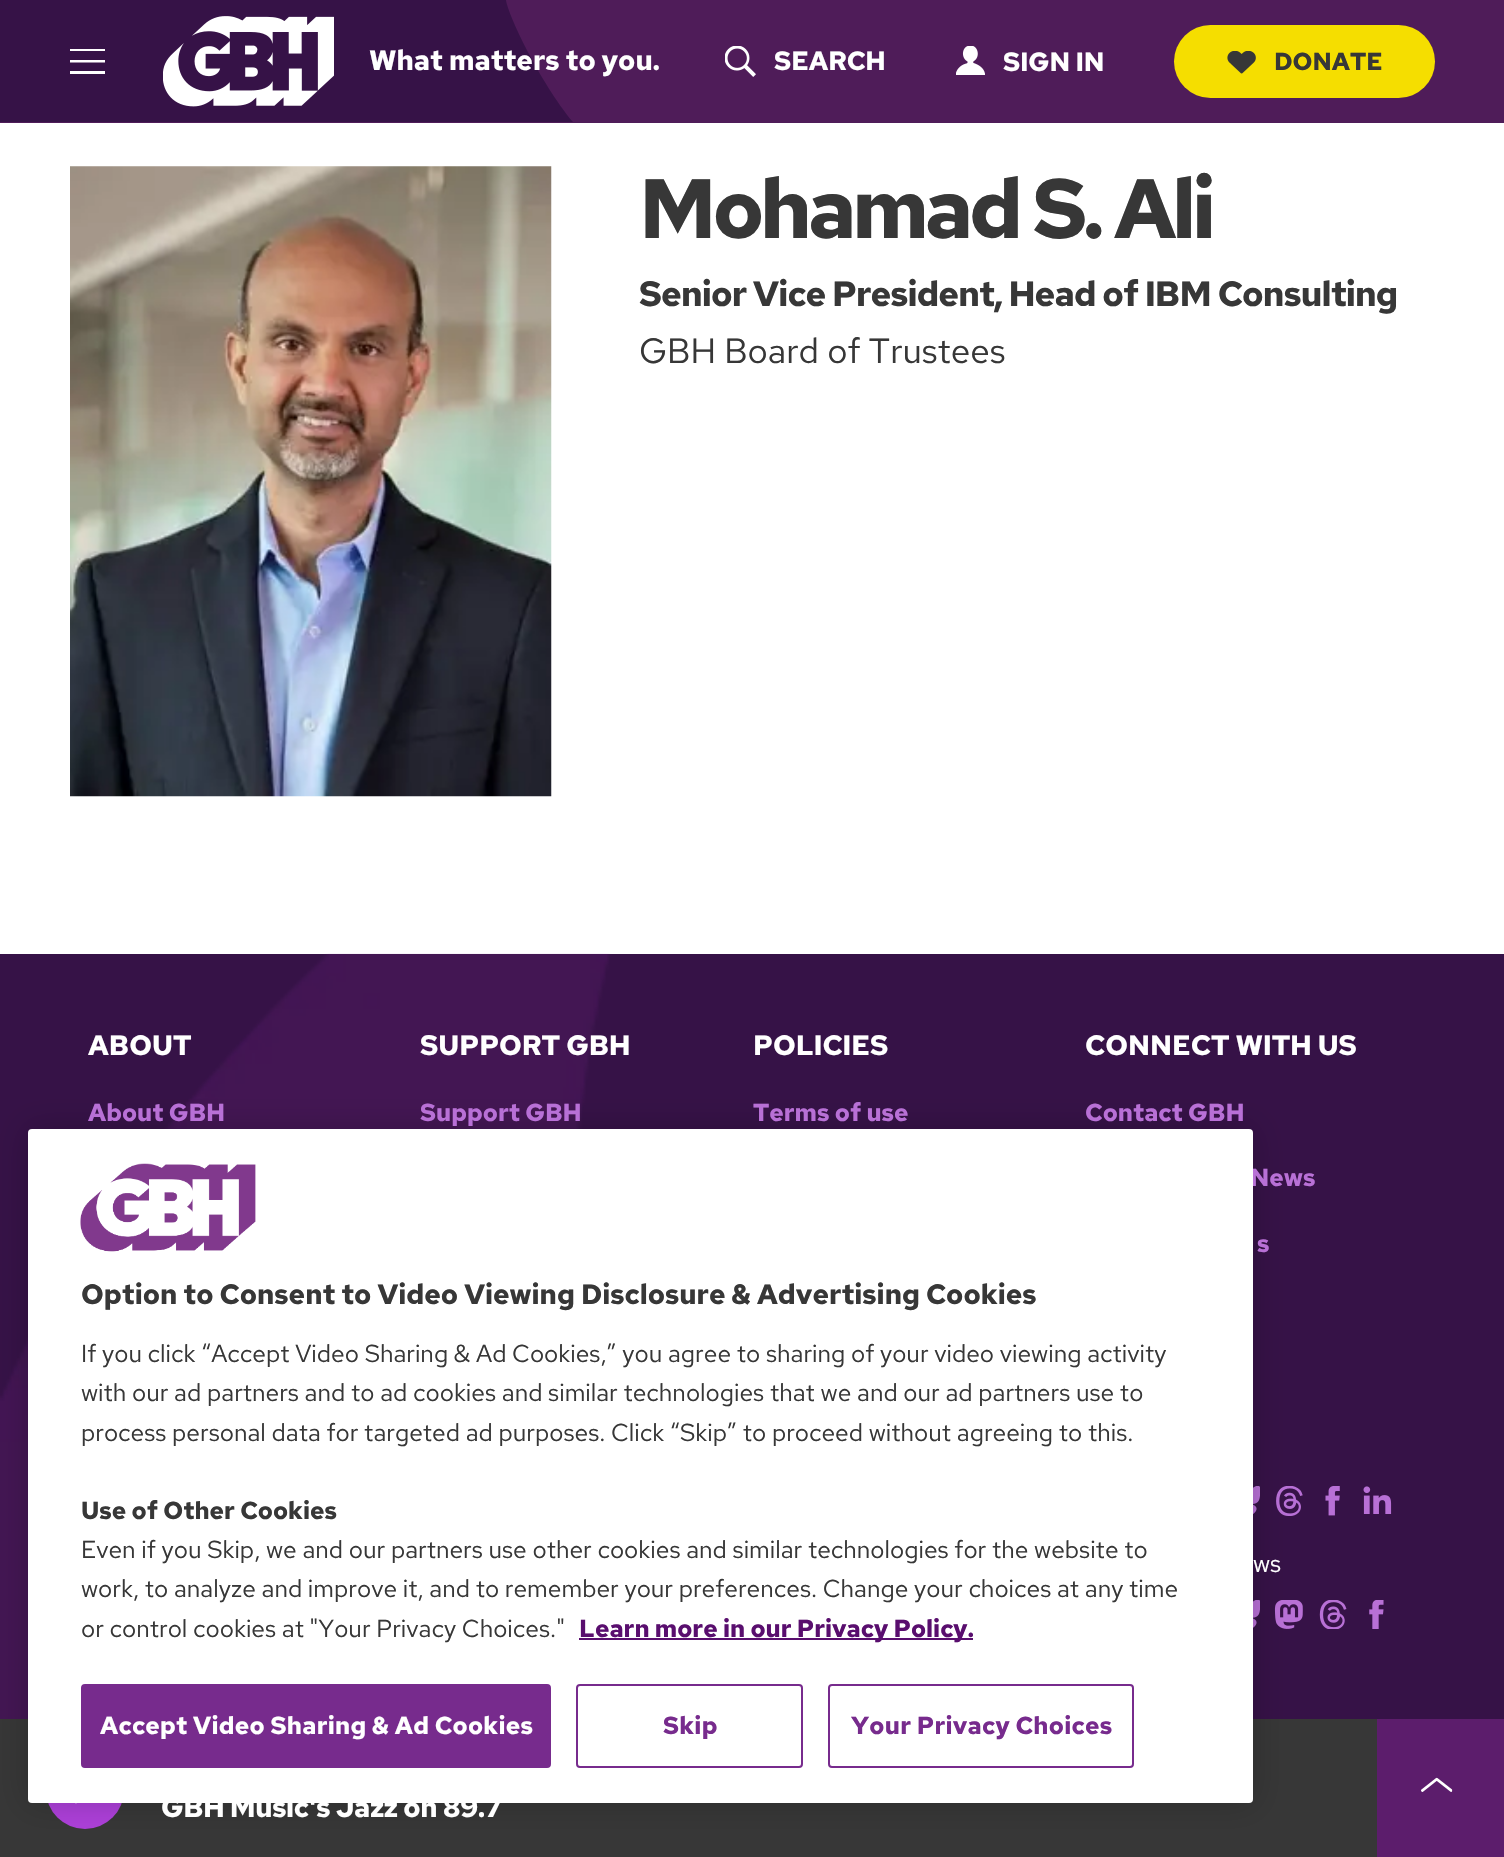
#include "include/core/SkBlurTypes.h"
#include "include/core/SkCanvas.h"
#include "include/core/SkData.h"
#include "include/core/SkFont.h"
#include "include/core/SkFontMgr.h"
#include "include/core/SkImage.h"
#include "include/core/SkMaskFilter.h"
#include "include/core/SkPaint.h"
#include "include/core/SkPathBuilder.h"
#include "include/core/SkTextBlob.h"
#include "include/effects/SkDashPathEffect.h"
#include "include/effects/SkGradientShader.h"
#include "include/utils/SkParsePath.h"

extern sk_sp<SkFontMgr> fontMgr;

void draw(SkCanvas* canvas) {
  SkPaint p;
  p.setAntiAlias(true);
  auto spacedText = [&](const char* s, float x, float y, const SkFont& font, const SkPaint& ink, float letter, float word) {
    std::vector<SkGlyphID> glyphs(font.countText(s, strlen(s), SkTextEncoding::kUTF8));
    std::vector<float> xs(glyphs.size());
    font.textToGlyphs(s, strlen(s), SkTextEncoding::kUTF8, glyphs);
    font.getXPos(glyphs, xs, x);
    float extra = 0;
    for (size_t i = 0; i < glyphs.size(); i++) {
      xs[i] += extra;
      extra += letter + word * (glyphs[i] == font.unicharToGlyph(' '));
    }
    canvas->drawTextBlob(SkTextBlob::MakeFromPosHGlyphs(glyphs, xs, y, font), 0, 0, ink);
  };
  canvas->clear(SK_ColorWHITE);
  p.setColor(SkColorSetRGB(79, 28, 89));
  canvas->drawRect(SkRect::MakeLTRB(0, 0, 1504, 123), p);
  p.setColor(SkColorSetRGB(54, 18, 71));
  canvas->drawPath(SkPathBuilder().moveTo(-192, 0).lineTo(506, 0).cubicTo(508, 15, 540, 82, 573, 122).lineTo(-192, 122).close().detach(), p);
  p.setColor(SK_ColorWHITE);
  canvas->drawPath(SkPathBuilder(SkPathFillType::kEvenOdd).moveTo(70, 62.5f).lineTo(70, 60).lineTo(105, 60).lineTo(105, 62.5f).close().moveTo(70, 51).lineTo(70, 49).lineTo(105, 49).lineTo(105, 51).close().moveTo(70, 74).lineTo(70, 71).lineTo(105, 71).lineTo(105, 74).close().detach(), p);
  canvas->drawImageRect(SkImages::DeferredFromEncodedData(SkData::MakeFromFileName("images/1.png")), SkRect::MakeLTRB(163, 16, 334, 107), SkSamplingOptions());
  canvas->drawImageRect(SkImages::DeferredFromEncodedData(SkData::MakeFromFileName("images/2.png")), SkRect::MakeLTRB(725, 46, 756, 77), SkSamplingOptions());
  canvas->drawImageRect(SkImages::DeferredFromEncodedData(SkData::MakeFromFileName("images/3.png")), SkRect::MakeLTRB(956, 46, 985, 75), SkSamplingOptions());
  p.setColor(SkColorSetRGB(245, 222, 0));
  canvas->drawRoundRect(SkRect::MakeLTRB(1174, 25, 1435, 98), 36.5f, 36.5f, p);
  canvas->drawImageRect(SkImages::DeferredFromEncodedData(SkData::MakeFromFileName("images/4.png")), SkRect::MakeLTRB(1227, 51, 1256, 74), SkSamplingOptions());
  p.setColor(SkColorSetRGB(55, 55, 55));
  canvas->drawRect(SkRect::MakeLTRB(0, 1719, 1377, 1857), p);
  p.setColor(SkColorSetRGB(173, 64, 217));
  canvas->drawRoundRect(SkRect::MakeLTRB(46, 1750, 124, 1829), 39, 39, p);
  canvas->drawImageRect(SkImages::DeferredFromEncodedData(SkData::MakeFromFileName("images/5.png")), SkRect::MakeLTRB(75, 1803, 77, 1804), SkSamplingOptions());
  p.setColor(SkColorSetRGB(92, 29, 108));
  canvas->drawRect(SkRect::MakeLTRB(1377, 1719, 1504, 1857), p);
  canvas->drawImageRect(SkImages::DeferredFromEncodedData(SkData::MakeFromFileName("images/6.png")), SkRect::MakeLTRB(1421, 1777, 1453, 1792), SkSamplingOptions());
  canvas->drawImageRect(SkImages::DeferredFromEncodedData(SkData::MakeFromFileName("images/7.png")), SkRect::MakeLTRB(70, 166, 552, 797), SkSamplingOptions());
  p.setColor(SkColorSetRGB(54, 18, 71));
  canvas->drawRect(SkRect::MakeLTRB(0, 954, 1504, 1719), p);
  canvas->drawImageRect(SkImages::DeferredFromEncodedData(SkData::MakeFromFileName("images/8.png")), SkRect::MakeLTRB(0, 953, 612, 1719), SkSamplingOptions());
  canvas->drawImageRect(SkImages::DeferredFromEncodedData(SkData::MakeFromFileName("images/9.png")), SkRect::MakeLTRB(1253, 1486, 1260, 1514), SkSamplingOptions());
  canvas->drawImageRect(SkImages::DeferredFromEncodedData(SkData::MakeFromFileName("images/10.png")), SkRect::MakeLTRB(1276, 1486, 1303, 1516), SkSamplingOptions());
  canvas->drawImageRect(SkImages::DeferredFromEncodedData(SkData::MakeFromFileName("images/11.png")), SkRect::MakeLTRB(1325, 1486, 1340, 1516), SkSamplingOptions());
  canvas->drawImageRect(SkImages::DeferredFromEncodedData(SkData::MakeFromFileName("images/12.png")), SkRect::MakeLTRB(1363, 1486, 1392, 1514), SkSamplingOptions());
  canvas->drawImageRect(SkImages::DeferredFromEncodedData(SkData::MakeFromFileName("images/13.png")), SkRect::MakeLTRB(1253, 1600, 1260, 1628), SkSamplingOptions());
  canvas->drawImageRect(SkImages::DeferredFromEncodedData(SkData::MakeFromFileName("images/14.png")), SkRect::MakeLTRB(1274, 1600, 1303, 1629), SkSamplingOptions());
  canvas->drawImageRect(SkImages::DeferredFromEncodedData(SkData::MakeFromFileName("images/15.png")), SkRect::MakeLTRB(1319, 1600, 1347, 1629), SkSamplingOptions());
  canvas->drawImageRect(SkImages::DeferredFromEncodedData(SkData::MakeFromFileName("images/16.png")), SkRect::MakeLTRB(1369, 1600, 1384, 1629), SkSamplingOptions());
  p.setColor(SkColorSetARGB(51, 0, 0, 0));
  p.setMaskFilter(SkMaskFilter::MakeBlur(kNormal_SkBlurStyle, 16));
  canvas->drawRoundRect(SkRect::MakeLTRB(28, 1129, 1253, 1803), 4, 4, p);
  p.setMaskFilter(nullptr);
  SkFont font1(fontMgr->matchFamilyStyle("Red Hat Text", SkFontStyle::Bold()), 28);
  font1.setSubpixel(true);
  p.setColor(SK_ColorWHITE);
  canvas->drawString("What matters to you.", 369, 70, font1, p);
  SkFont font2(fontMgr->matchFamilyStyle("Red Hat Text", SkFontStyle::Bold()), 26.25f);
  font2.setSubpixel(true);
  canvas->drawString("SEARCH", 774, 70, font2, p);
  canvas->drawString("SIGN IN", 1003, 71, font2, p);
  SkFont font3(fontMgr->matchFamilyStyle("Red Hat Text", SkFontStyle::Bold()), 24.5f);
  font3.setSubpixel(true);
  p.setColor(SkColorSetRGB(55, 55, 55));
  canvas->drawString("DONATE", 1274, 70, font3, p);
  p.setColor(SK_ColorWHITE);
  spacedText("GBH Music's Jazz on 89.7", 161, 1817, font1, p, -0.4f, 0);
  SkFont font4(fontMgr->matchFamilyStyle("Red Hat Text", SkFontStyle::Bold()), 84);
  font4.setSubpixel(true);
  p.setColor(SkColorSetRGB(55, 55, 55));
  spacedText("Mohamad S. Ali", 639, 238, font4, p, -4.25f, 0);
  SkFont font5(fontMgr->matchFamilyStyle("Red Hat Text", SkFontStyle::Bold()), 35);
  font5.setSubpixel(true);
  spacedText("Senior Vice President, Head of IBM Consulting", 639, 306, font5, p, -0.85f, 0);
  SkFont font6(fontMgr->matchFamilyStyle("Red Hat Text", SkFontStyle::Normal()), 35);
  font6.setSubpixel(true);
  canvas->drawString("GBH Board of Trustees", 639, 363, font6, p);
  p.setColor(SK_ColorWHITE);
  canvas->drawString("ABOUT", 88, 1055, font1, p);
  p.setColor(SkColorSetRGB(184, 112, 214));
  canvas->drawString("About GBH", 88, 1121, font3, p);
  p.setColor(SK_ColorWHITE);
  canvas->drawString("SUPPORT GBH", 420, 1055, font1, p);
  p.setColor(SkColorSetRGB(184, 112, 214));
  canvas->drawString("Support GBH", 420, 1121, font3, p);
  p.setColor(SK_ColorWHITE);
  canvas->drawString("POLICIES", 753, 1055, font1, p);
  p.setColor(SkColorSetRGB(184, 112, 214));
  canvas->drawString("Terms of use", 753, 1121, font3, p);
  p.setColor(SK_ColorWHITE);
  canvas->drawString("CONNECT WITH US", 1085, 1055, font1, p);
  p.setColor(SkColorSetRGB(184, 112, 214));
  canvas->drawString("Contact GBH", 1085, 1121, font3, p);
  canvas->drawString("News", 1250, 1186, font3, p);
  canvas->drawString("s", 1257, 1252, font3, p);
  SkFont font7(fontMgr->matchFamilyStyle("Red Hat Text", SkFontStyle::Normal()), 24.5f);
  font7.setSubpixel(true);
  p.setColor(SK_ColorWHITE);
  canvas->drawString("ws", 1253, 1572, font7, p);
  canvas->drawRoundRect(SkRect::MakeLTRB(28, 1129, 1253, 1803), 4, 4, p);
  canvas->drawImageRect(SkImages::DeferredFromEncodedData(SkData::MakeFromFileName("images/17.png")), SkRect::MakeLTRB(80, 1163, 256, 1252), SkSamplingOptions());
  p.setColor(SkColorSetRGB(55, 55, 55));
  canvas->drawString("Option to Consent to Video Viewing Disclosure & Advertising Cookies", 81, 1304, font1, p);
  canvas->drawString("If you click “Accept Video Sharing & Ad Cookies,” you agree to sharing of your video viewing activity", 81, 1362, font7, p);
  canvas->drawString("with our ad partners and to ad cookies and similar technologies that we and our ad partners use to", 81, 1401, font7, p);
  canvas->drawString("process personal data for targeted ad purposes. Click “Skip” to proceed without agreeing to this.", 81, 1441, font7, p);
  canvas->drawString("Use of Other Cookies", 81, 1519, font3, p);
  canvas->drawString("Even if you Skip, we and our partners use other cookies and similar technologies for the website to", 81, 1558, font7, p);
  canvas->drawString("work, to analyze and improve it, and to remember your preferences. Change your choices at any time", 81, 1597, font7, p);
  canvas->drawString("or control cookies at \"Your Privacy Choices.\"", 81, 1637, font7, p);
  p.setColor(SkColorSetRGB(89, 14, 110));
  canvas->drawRect(SkRect::MakeLTRB(579, 1638, 973, 1640), p);
  canvas->drawString("Learn more in our Privacy Policy.", 579, 1637, font3, p);
  p.setColor(SkColorSetRGB(119, 43, 141));
  canvas->drawRoundRect(SkRect::MakeLTRB(82, 1685, 550, 1767), 3, 3, p);
  p.setStyle(SkPaint::kStroke_Style);
  p.setStrokeWidth(2);
  canvas->drawRoundRect(SkRect::MakeLTRB(82, 1685, 550, 1767), 3, 3, p);
  p.setStyle(SkPaint::kFill_Style);
  p.setColor(SK_ColorWHITE);
  spacedText("Accept Video Sharing & Ad Cookies", 100, 1734, font3, p, 0.25f, 0);
  p.setStyle(SkPaint::kStroke_Style);
  p.setColor(SkColorSetRGB(119, 43, 141));
  canvas->drawRoundRect(SkRect::MakeLTRB(577, 1685, 802, 1767), 3, 3, p);
  p.setStyle(SkPaint::kFill_Style);
  spacedText("Skip", 663, 1734, font3, p, 0.25f, 0);
  p.setStyle(SkPaint::kStroke_Style);
  canvas->drawRoundRect(SkRect::MakeLTRB(829, 1685, 1133, 1767), 3, 3, p);
  p.setStyle(SkPaint::kFill_Style);
  spacedText("Your Privacy Choices", 851, 1734, font3, p, 0.25f, 0);
}
